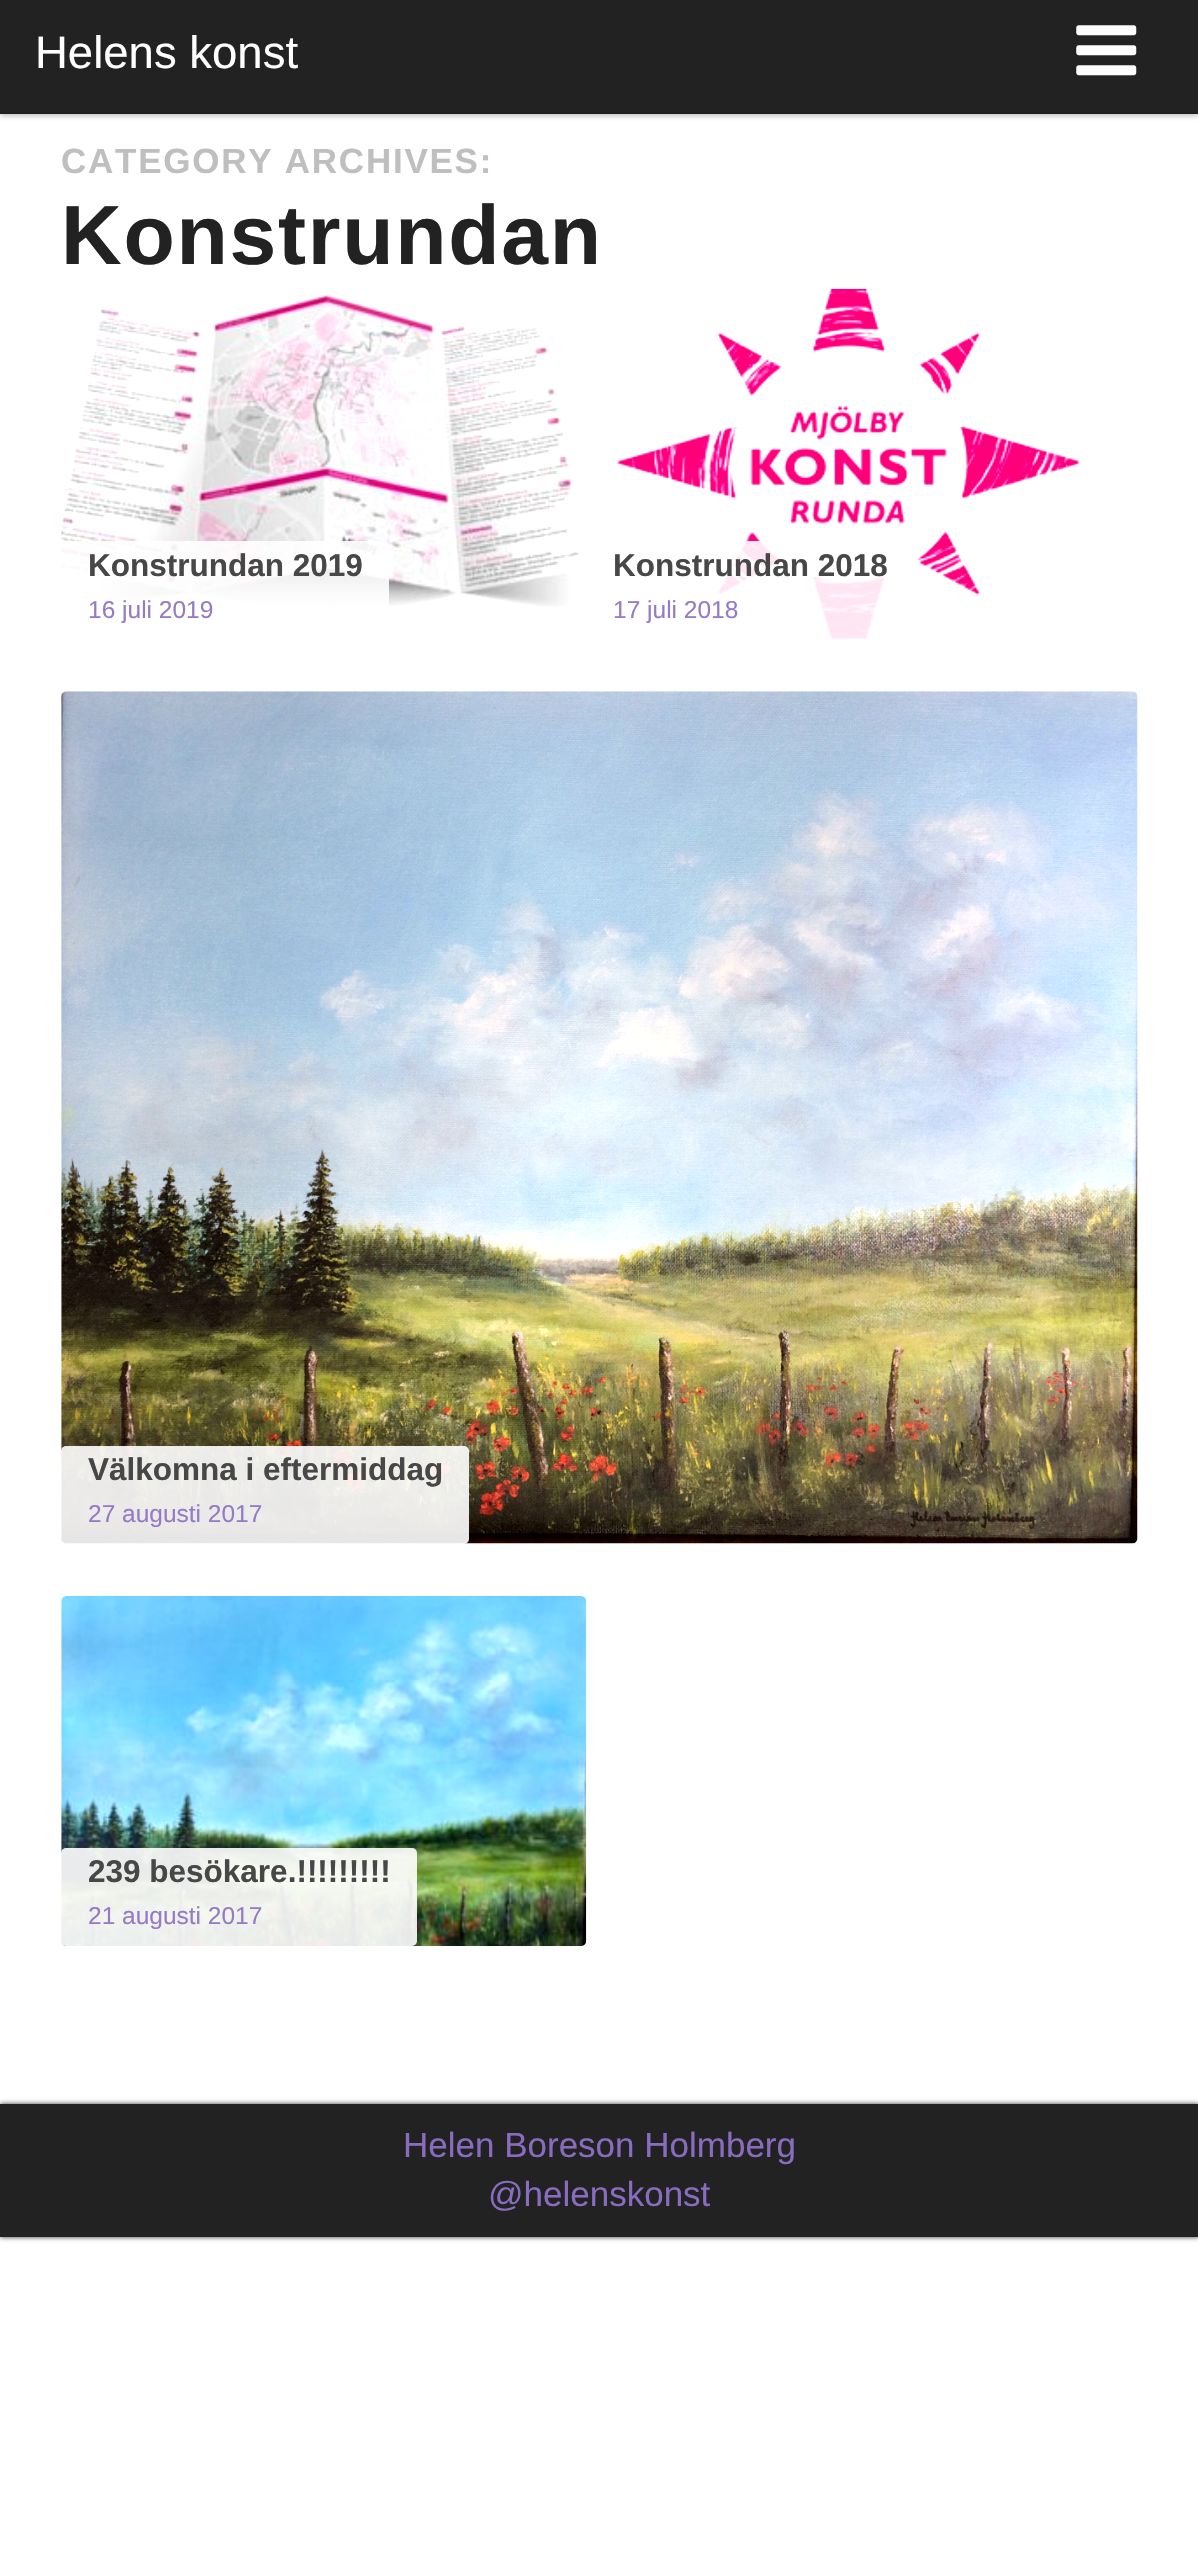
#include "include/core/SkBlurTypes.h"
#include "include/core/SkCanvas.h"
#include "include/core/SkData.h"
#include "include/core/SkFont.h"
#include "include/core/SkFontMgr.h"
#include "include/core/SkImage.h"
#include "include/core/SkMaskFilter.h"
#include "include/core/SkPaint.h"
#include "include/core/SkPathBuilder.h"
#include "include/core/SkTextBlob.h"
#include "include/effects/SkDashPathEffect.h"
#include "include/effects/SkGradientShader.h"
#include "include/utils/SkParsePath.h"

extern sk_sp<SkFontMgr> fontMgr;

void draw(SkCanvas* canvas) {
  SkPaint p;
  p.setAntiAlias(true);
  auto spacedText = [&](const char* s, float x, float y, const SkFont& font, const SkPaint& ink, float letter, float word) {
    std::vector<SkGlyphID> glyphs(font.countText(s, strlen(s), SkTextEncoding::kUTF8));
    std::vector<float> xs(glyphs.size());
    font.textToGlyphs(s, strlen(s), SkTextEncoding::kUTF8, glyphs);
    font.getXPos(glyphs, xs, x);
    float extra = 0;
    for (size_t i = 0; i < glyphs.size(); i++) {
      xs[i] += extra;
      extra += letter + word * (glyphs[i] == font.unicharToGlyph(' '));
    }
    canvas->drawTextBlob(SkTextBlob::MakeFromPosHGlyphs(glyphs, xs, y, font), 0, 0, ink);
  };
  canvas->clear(SK_ColorWHITE);
  p.setColor(SkColorSetARGB(64, 0, 0, 0));
  p.setMaskFilter(SkMaskFilter::MakeBlur(kNormal_SkBlurStyle, 2.5f));
  canvas->drawRect(SkRect::MakeLTRB(0, 2, 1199, 116), p);
  p.setMaskFilter(nullptr);
  p.setColor(SkColorSetRGB(34, 34, 34));
  canvas->drawRect(SkRect::MakeLTRB(0, 0, 1198, 112), p);
  p.setColor(SkColorSetRGB(31, 31, 31));
  canvas->drawRect(SkRect::MakeLTRB(0, 112, 1198, 114), p);
  canvas->drawImageRect(SkImages::DeferredFromEncodedData(SkData::MakeFromFileName("images/1.png")), SkRect::MakeLTRB(1076, 25, 1137, 76), SkSamplingOptions());
  canvas->drawImageRect(SkImages::DeferredFromEncodedData(SkData::MakeFromFileName("images/2.png")), SkRect::MakeLTRB(61, 295, 579, 609), SkSamplingOptions());
  p.setColor(SkColorSetARGB(230, 255, 255, 255));
  canvas->drawRoundRect(SkRect::MakeLTRB(61, 541, 389, 639), 5, 5, p);
  canvas->drawImageRect(SkImages::DeferredFromEncodedData(SkData::MakeFromFileName("images/3.png")), SkRect::MakeLTRB(617, 288, 1080, 639), SkSamplingOptions());
  canvas->drawRoundRect(SkRect::MakeLTRB(586, 541, 914, 639), 5, 5, p);
  canvas->drawImageRect(SkImages::DeferredFromEncodedData(SkData::MakeFromFileName("images/4.png")), SkRect::MakeLTRB(61, 691, 1138, 1544), SkSamplingOptions());
  canvas->drawRoundRect(SkRect::MakeLTRB(61, 1446, 469, 1544), 5, 5, p);
  canvas->drawImageRect(SkImages::DeferredFromEncodedData(SkData::MakeFromFileName("images/5.png")), SkRect::MakeLTRB(61, 1596, 587, 1946), SkSamplingOptions());
  canvas->drawRoundRect(SkRect::MakeLTRB(61, 1848, 417, 1946), 5, 5, p);
  p.setColor(SkColorSetRGB(51, 51, 51));
  p.setMaskFilter(SkMaskFilter::MakeBlur(kNormal_SkBlurStyle, 2.5f));
  canvas->drawRect(SkRect::MakeLTRB(0, 2104, 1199, 2237), p);
  p.setMaskFilter(nullptr);
  p.setColor(SkColorSetRGB(34, 34, 34));
  canvas->drawRect(SkRect::MakeLTRB(0, 2104, 1198, 2237), p);
  SkFont font1(fontMgr->matchFamilyStyle("Liberation Sans", SkFontStyle::Normal()), 45.5f);
  font1.setSubpixel(true);
  p.setColor(SK_ColorWHITE);
  canvas->drawString("Helens konst", 35, 68, font1, p);
  SkFont font2(fontMgr->matchFamilyStyle("Liberation Sans", SkFontStyle::Bold()), 35);
  font2.setSubpixel(true);
  p.setColor(SkColorSetRGB(191, 191, 191));
  spacedText("CATEGORY ARCHIVES:", 61, 173, font2, p, 1.75f, 0);
  SkFont font3(fontMgr->matchFamilyStyle("Liberation Sans", SkFontStyle::Bold()), 84);
  font3.setSubpixel(true);
  p.setColor(SkColorSetRGB(34, 34, 34));
  spacedText("Konstrundan", 61, 264, font3, p, 1.75f, 0);
  SkFont font4(fontMgr->matchFamilyStyle("Liberation Sans", SkFontStyle::Bold()), 31.5f);
  font4.setSubpixel(true);
  p.setColor(SkColorSetRGB(71, 71, 71));
  canvas->drawString("Konstrundan 2019", 88, 576, font4, p);
  SkFont font5(fontMgr->matchFamilyStyle("Liberation Sans", SkFontStyle::Normal()), 24.5f);
  font5.setSubpixel(true);
  p.setColor(SkColorSetRGB(149, 123, 198));
  canvas->drawString("16 juli 2019", 88, 618, font5, p);
  p.setColor(SkColorSetRGB(71, 71, 71));
  canvas->drawString("Konstrundan 2018", 613, 576, font4, p);
  p.setColor(SkColorSetRGB(149, 123, 198));
  canvas->drawString("17 juli 2018", 613, 618, font5, p);
  p.setColor(SkColorSetRGB(71, 71, 71));
  canvas->drawString("Välkomna i eftermiddag", 88, 1480, font4, p);
  p.setColor(SkColorSetRGB(149, 123, 198));
  canvas->drawString("27 augusti 2017", 88, 1522, font5, p);
  p.setColor(SkColorSetRGB(71, 71, 71));
  canvas->drawString("239 besökare.!!!!!!!!!", 88, 1882, font4, p);
  p.setColor(SkColorSetRGB(149, 123, 198));
  canvas->drawString("21 augusti 2017", 88, 1924, font5, p);
  SkFont font6(fontMgr->matchFamilyStyle("Liberation Sans", SkFontStyle::Normal()), 35);
  font6.setSubpixel(true);
  p.setColor(SkColorSetRGB(137, 108, 192));
  canvas->drawString("Helen Boreson Holmberg", 403, 2157, font6, p);
  canvas->drawString("@helenskonst", 488, 2206, font6, p);
}
